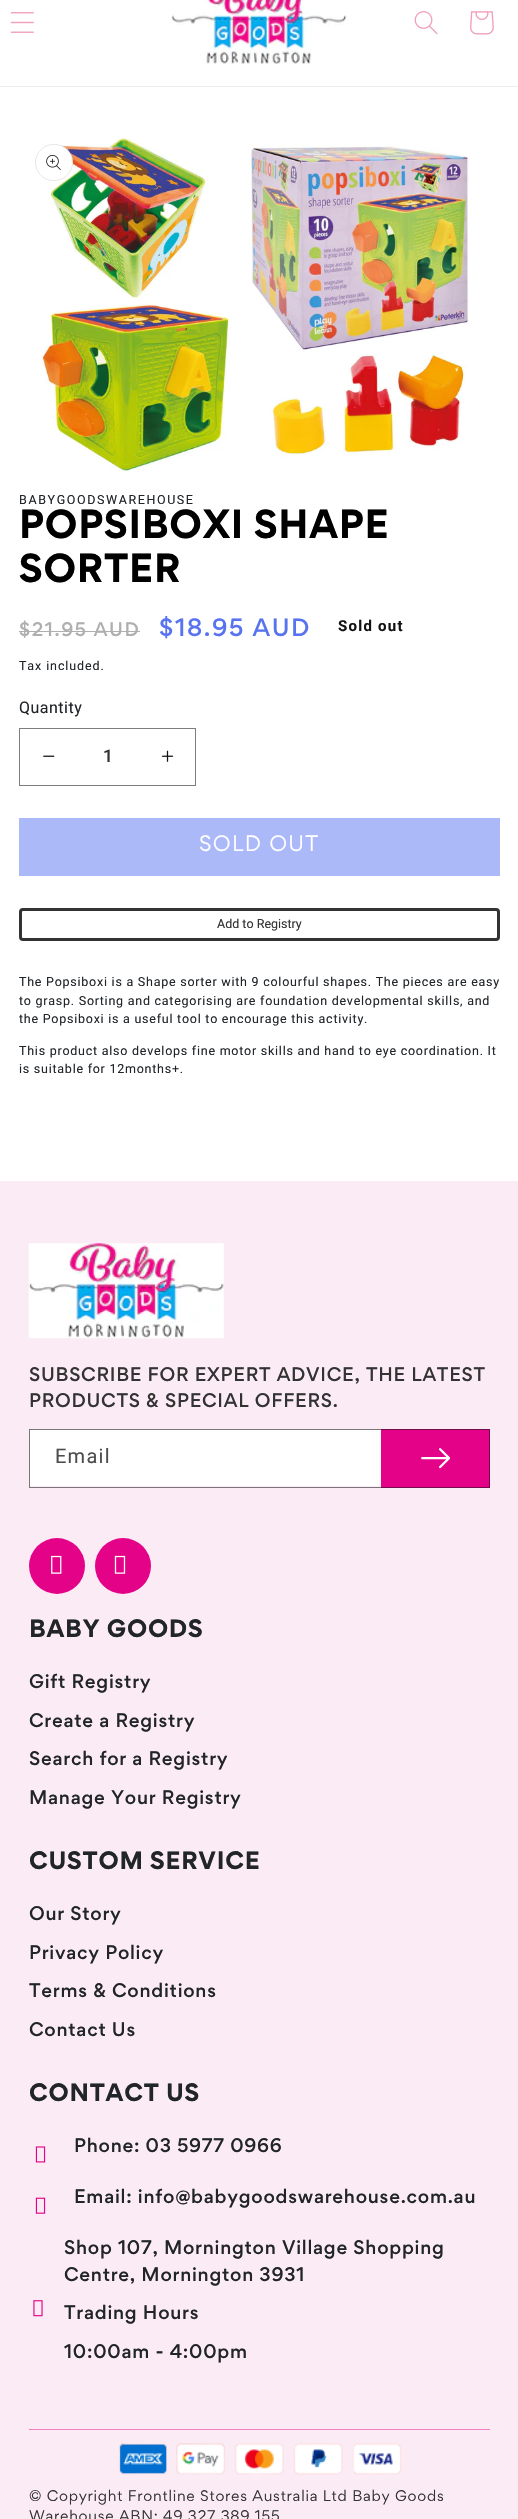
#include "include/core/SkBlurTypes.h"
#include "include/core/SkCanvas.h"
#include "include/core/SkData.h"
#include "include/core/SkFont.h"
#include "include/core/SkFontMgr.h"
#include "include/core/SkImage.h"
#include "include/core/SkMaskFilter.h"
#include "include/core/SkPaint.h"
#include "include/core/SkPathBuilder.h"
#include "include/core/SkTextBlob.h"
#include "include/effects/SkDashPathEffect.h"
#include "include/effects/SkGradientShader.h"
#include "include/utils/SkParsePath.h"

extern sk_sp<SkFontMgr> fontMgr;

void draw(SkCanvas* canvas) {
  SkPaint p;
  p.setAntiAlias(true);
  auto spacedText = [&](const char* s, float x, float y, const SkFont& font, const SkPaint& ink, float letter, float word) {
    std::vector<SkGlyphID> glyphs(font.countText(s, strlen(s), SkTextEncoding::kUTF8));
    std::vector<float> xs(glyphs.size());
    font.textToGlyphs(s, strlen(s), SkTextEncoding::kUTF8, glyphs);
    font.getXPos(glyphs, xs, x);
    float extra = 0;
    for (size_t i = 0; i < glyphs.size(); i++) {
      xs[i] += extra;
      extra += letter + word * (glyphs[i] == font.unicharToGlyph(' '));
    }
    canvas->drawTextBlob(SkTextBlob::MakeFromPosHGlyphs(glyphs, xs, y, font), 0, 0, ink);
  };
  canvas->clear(SK_ColorWHITE);
  p.setColor(SkColorSetRGB(236, 236, 236));
  canvas->drawRect(SkRect::MakeLTRB(0, 86, 518, 87), p);
  canvas->drawImageRect(SkImages::DeferredFromEncodedData(SkData::MakeFromFileName("images/1.png")), SkRect::MakeLTRB(10, 12, 34, 33), SkSamplingOptions());
  canvas->drawImageRect(SkImages::DeferredFromEncodedData(SkData::MakeFromFileName("images/2.png")), SkRect::MakeLTRB(171, 0, 347, 64), SkSamplingOptions());
  canvas->drawImageRect(SkImages::DeferredFromEncodedData(SkData::MakeFromFileName("images/3.png")), SkRect::MakeLTRB(414, 11, 438, 35), SkSamplingOptions());
  canvas->drawImageRect(SkImages::DeferredFromEncodedData(SkData::MakeFromFileName("images/4.png")), SkRect::MakeLTRB(470, 11, 494, 35), SkSamplingOptions());
  canvas->drawImageRect(SkImages::DeferredFromEncodedData(SkData::MakeFromFileName("images/5.png")), SkRect::MakeLTRB(40, 138, 469, 472), SkSamplingOptions());
  p.setColor(SK_ColorWHITE);
  canvas->drawRoundRect(SkRect::MakeLTRB(35, 144, 73, 181), 18.5f, 18.5f, p);
  p.setStyle(SkPaint::kStroke_Style);
  p.setStrokeWidth(1);
  p.setColor(SkColorSetARGB(26, 18, 18, 18));
  canvas->drawRoundRect(SkRect::MakeLTRB(35.5f, 144.5f, 72.5f, 180.5f), 18, 18, p);
  canvas->drawImageRect(SkImages::DeferredFromEncodedData(SkData::MakeFromFileName("images/6.png")), SkRect::MakeLTRB(46, 155, 61, 170), SkSamplingOptions());
  p.setStyle(SkPaint::kFill_Style);
  p.setColor(SkColorSetRGB(175, 175, 175));
  canvas->drawRect(SkRect::MakeLTRB(19, 631, 140, 632), p);
  canvas->drawImageRect(SkImages::DeferredFromEncodedData(SkData::MakeFromFileName("images/7.png")), SkRect::MakeLTRB(43, 755, 55, 757), SkSamplingOptions());
  canvas->drawImageRect(SkImages::DeferredFromEncodedData(SkData::MakeFromFileName("images/8.png")), SkRect::MakeLTRB(161, 750, 174, 762), SkSamplingOptions());
  p.setStyle(SkPaint::kStroke_Style);
  p.setColor(SkColorSetRGB(125, 125, 125));
  canvas->drawRect(SkRect::MakeLTRB(19.5f, 728.5f, 195.5f, 785.5f), p);
  p.setStyle(SkPaint::kFill_Style);
  p.setColor(SkColorSetRGB(172, 185, 248));
  canvas->drawRect(SkRect::MakeLTRB(19, 818, 500, 876), p);
  p.setStyle(SkPaint::kStroke_Style);
  p.setStrokeWidth(3);
  p.setColor(SkColorSetRGB(51, 51, 51));
  canvas->drawRoundRect(SkRect::MakeLTRB(20.5f, 909.5f, 498.5f, 939.5f), 2.5f, 2.5f, p);
  p.setStyle(SkPaint::kFill_Style);
  p.setColor(SkColorSetRGB(251, 235, 244));
  canvas->drawRect(SkRect::MakeLTRB(0, 1181, 518, 2519), p);
  canvas->drawImageRect(SkImages::DeferredFromEncodedData(SkData::MakeFromFileName("images/9.png")), SkRect::MakeLTRB(28, 1243, 224, 1339), SkSamplingOptions());
  p.setColor(SK_ColorWHITE);
  canvas->drawRect(SkRect::MakeLTRB(30, 1430, 381, 1486), p);
  p.setColor(SkColorSetRGB(228, 3, 136));
  canvas->drawRect(SkRect::MakeLTRB(381, 1429, 490, 1488), p);
  canvas->drawImageRect(SkImages::DeferredFromEncodedData(SkData::MakeFromFileName("images/10.png")), SkRect::MakeLTRB(421, 1448, 451, 1469), SkSamplingOptions());
  p.setStyle(SkPaint::kStroke_Style);
  p.setStrokeWidth(1);
  p.setColor(SkColorSetARGB(140, 18, 18, 18));
  canvas->drawRect(SkRect::MakeLTRB(29.5f, 1429.5f, 489.5f, 1487.5f), p);
  p.setStyle(SkPaint::kFill_Style);
  p.setColor(SkColorSetRGB(228, 3, 136));
  canvas->drawCircle(57, 1566, 28, p);
  canvas->drawImageRect(SkImages::DeferredFromEncodedData(SkData::MakeFromFileName("images/11.png")), SkRect::MakeLTRB(51, 1555, 62, 1574), SkSamplingOptions());
  canvas->drawCircle(123, 1566, 28, p);
  canvas->drawImageRect(SkImages::DeferredFromEncodedData(SkData::MakeFromFileName("images/12.png")), SkRect::MakeLTRB(114, 1555, 126, 1574), SkSamplingOptions());
  canvas->drawImageRect(SkImages::DeferredFromEncodedData(SkData::MakeFromFileName("images/13.png")), SkRect::MakeLTRB(35, 2146, 46, 2163), SkSamplingOptions());
  canvas->drawImageRect(SkImages::DeferredFromEncodedData(SkData::MakeFromFileName("images/14.png")), SkRect::MakeLTRB(35, 2197, 46, 2214), SkSamplingOptions());
  canvas->drawImageRect(SkImages::DeferredFromEncodedData(SkData::MakeFromFileName("images/15.png")), SkRect::MakeLTRB(33, 2300, 43, 2317), SkSamplingOptions());
  p.setColor(SkColorSetRGB(240, 127, 194));
  canvas->drawRect(SkRect::MakeLTRB(29, 2429, 490, 2430), p);
  canvas->drawImageRect(SkImages::DeferredFromEncodedData(SkData::MakeFromFileName("images/16.png")), SkRect::MakeLTRB(118, 2443, 402, 2475), SkSamplingOptions());
  SkFont font1(fontMgr->matchFamilyStyle("Roboto", SkFontStyle::Normal()), 12.5f);
  font1.setSubpixel(true);
  p.setColor(SkColorSetRGB(33, 37, 41));
  spacedText("BABYGOODSWAREHOUSE", 19, 504, font1, p, 1.6f, 0);
  SkFont font2(fontMgr->matchFamilyStyle("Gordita", SkFontStyle::Bold()), 36.25f);
  font2.setSubpixel(true);
  p.setColor(SK_ColorBLACK);
  spacedText("POPSIBOXI SHAPE", 19, 538, font2, p, 0.75f, 0);
  spacedText("SORTER", 19, 582, font2, p, 0.75f, 0);
  SkFont font3(fontMgr->matchFamilyStyle("Gordita", SkFontStyle(500, SkFontStyle::kNormal_Width, SkFontStyle::kUpright_Slant)), 17.5f);
  font3.setSubpixel(true);
  p.setColor(SkColorSetRGB(175, 175, 175));
  spacedText("$21.95 AUD", 19, 636, font3, p, 1.6f, 0);
  SkFont font4(fontMgr->matchFamilyStyle("Gordita", SkFontStyle(500, SkFontStyle::kNormal_Width, SkFontStyle::kUpright_Slant)), 22.5f);
  font4.setSubpixel(true);
  p.setColor(SkColorSetRGB(88, 115, 240));
  spacedText("$18.95 AUD", 159, 636, font4, p, 1.6f, 0);
  SkFont font5(fontMgr->matchFamilyStyle("Roboto", SkFontStyle::Bold()), 15);
  font5.setSubpixel(true);
  p.setColor(SkColorSetRGB(18, 18, 18));
  spacedText("Sold out", 338, 631, font5, p, 1.25f, 0);
  p.setColor(SkColorSetRGB(33, 37, 41));
  spacedText("Tax included.", 19, 670, font1, p, 0.9f, 0);
  SkFont font6(fontMgr->matchFamilyStyle("Roboto", SkFontStyle::Normal()), 16);
  font6.setSubpixel(true);
  spacedText("Quantity", 19, 713, font6, p, 0.5f, 0);
  SkFont font7(fontMgr->matchFamilyStyle("Roboto", SkFontStyle(500, SkFontStyle::kNormal_Width, SkFontStyle::kUpright_Slant)), 17.5f);
  font7.setSubpixel(true);
  p.setColor(SkColorSetRGB(51, 51, 51));
  canvas->drawString("1", 103, 762, font7, p);
  SkFont font8(fontMgr->matchFamilyStyle("Gordita", SkFontStyle::Normal()), 20);
  font8.setSubpixel(true);
  p.setColor(SK_ColorWHITE);
  spacedText("SOLD OUT", 199, 851, font8, p, 1.25f, 0);
  p.setColor(SkColorSetRGB(51, 51, 51));
  canvas->drawString("Add to Registry", 217, 928, font1, p);
  p.setColor(SkColorSetRGB(33, 37, 41));
  spacedText("The Popsiboxi is a Shape sorter with 9 colourful shapes. The pieces are easy", 19, 986, font1, p, 0.75f, 0);
  spacedText("to grasp. Sorting and categorising are foundation developmental skills, and", 19, 1005, font1, p, 0.75f, 0);
  spacedText("the Popsiboxi is a useful tool to encourage this activity.", 19, 1023, font1, p, 0.75f, 0);
  spacedText("This product also develops fine motor skills and hand to eye coordination. It", 19, 1055, font1, p, 0.75f, 0);
  spacedText("is suitable for 12months+.", 19, 1073, font1, p, 0.75f, 0);
  p.setColor(SkColorSetRGB(51, 51, 51));
  spacedText("SUBSCRIBE FOR EXPERT ADVICE, THE LATEST", 29, 1381, font3, p, 0.75f, 0);
  spacedText("PRODUCTS & SPECIAL OFFERS.", 29, 1407, font3, p, 0.75f, 0);
  SkFont font9(fontMgr->matchFamilyStyle("Roboto", SkFontStyle::Normal()), 20);
  font9.setSubpixel(true);
  p.setColor(SkColorSetRGB(77, 77, 77));
  spacedText("Email", 55, 1463, font9, p, 1.25f, 0);
  SkFont font10(fontMgr->matchFamilyStyle("Gordita", SkFontStyle::Bold()), 22.5f);
  font10.setSubpixel(true);
  p.setColor(SkColorSetRGB(33, 37, 41));
  spacedText("BABY GOODS", 29, 1637, font10, p, 0.75f, 0);
  spacedText("Gift Registry", 29, 1688, font3, p, 0.75f, 0);
  spacedText("Create a Registry", 29, 1727, font3, p, 0.75f, 0);
  spacedText("Search for a Registry", 29, 1765, font3, p, 0.75f, 0);
  spacedText("Manage Your Registry", 29, 1804, font3, p, 0.75f, 0);
  spacedText("CUSTOM SERVICE", 29, 1869, font10, p, 0.75f, 0);
  spacedText("Our Story", 29, 1920, font3, p, 0.75f, 0);
  spacedText("Privacy Policy", 29, 1959, font3, p, 0.75f, 0);
  spacedText("Terms & Conditions", 29, 1997, font3, p, 0.75f, 0);
  spacedText("Contact Us", 29, 2036, font3, p, 0.75f, 0);
  spacedText("CONTACT US", 29, 2101, font10, p, 0.75f, 0);
  spacedText("Phone: 03 5977 0966", 74, 2152, font3, p, 0.75f, 0);
  spacedText("Email: info@babygoodswarehouse.com.au", 74, 2203, font3, p, 0.75f, 0);
  spacedText("Shop 107, Mornington Village Shopping", 64, 2254, font3, p, 0.75f, 0);
  spacedText("Centre, Mornington 3931", 64, 2281, font3, p, 0.75f, 0);
  spacedText("Trading Hours", 64, 2319, font3, p, 0.75f, 0);
  spacedText("10:00am - 4:00pm", 64, 2358, font3, p, 0.75f, 0);
  SkFont font11(fontMgr->matchFamilyStyle("Gordita", SkFontStyle::Normal()), 13.75f);
  font11.setSubpixel(true);
  p.setColor(SkColorSetRGB(51, 51, 51));
  spacedText("© Copyright Frontline Stores Australia Ltd Baby Goods", 29, 2501, font11, p, 0.75f, 0);
  spacedText("Warehouse ABN: 49 327 389 155", 29, 2521, font11, p, 0.75f, 0);
}
